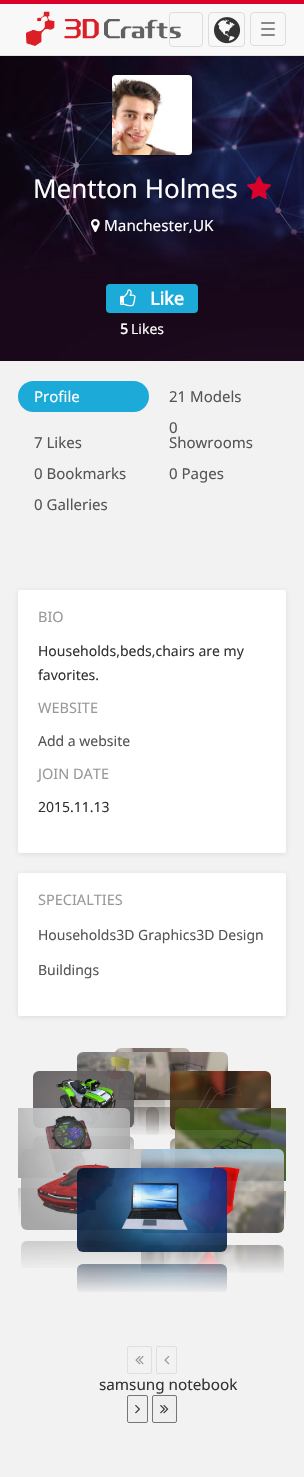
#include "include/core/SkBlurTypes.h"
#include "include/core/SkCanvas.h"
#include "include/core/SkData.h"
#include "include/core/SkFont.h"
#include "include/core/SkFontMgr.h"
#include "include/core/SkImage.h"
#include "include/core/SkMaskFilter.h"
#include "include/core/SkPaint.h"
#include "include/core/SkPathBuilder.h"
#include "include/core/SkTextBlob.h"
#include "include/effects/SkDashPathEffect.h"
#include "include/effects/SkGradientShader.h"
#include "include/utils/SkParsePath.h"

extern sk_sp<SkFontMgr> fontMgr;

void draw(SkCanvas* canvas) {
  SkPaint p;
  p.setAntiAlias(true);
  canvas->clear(SkColorSetRGB(242, 242, 242));
  canvas->drawImageRect(SkImages::DeferredFromEncodedData(SkData::MakeFromFileName("images/3.png")), SkRect::MakeLTRB(0, 56, 304, 361), SkSamplingOptions());
  p.setColor(SkColorSetARGB(38, 0, 0, 0));
  p.setMaskFilter(SkMaskFilter::MakeBlur(kNormal_SkBlurStyle, 2.5f));
  canvas->drawRect(SkRect::MakeLTRB(0, 1, 304, 56), p);
  p.setMaskFilter(nullptr);
  p.setColor(SkColorSetRGB(248, 248, 248));
  canvas->drawRect(SkRect::MakeLTRB(0, 4, 304, 55), p);
  p.setColor(SkColorSetRGB(218, 2, 43));
  canvas->drawRect(SkRect::MakeLTRB(0, 0, 304, 4), p);
  p.setColor(SkColorSetRGB(226, 226, 226));
  canvas->drawRect(SkRect::MakeLTRB(0, 55, 304, 56), p);
  canvas->drawImageRect(SkImages::DeferredFromEncodedData(SkData::MakeFromFileName("images/1.png")), SkRect::MakeLTRB(26, 11, 181, 46), SkSamplingOptions());
  p.setStyle(SkPaint::kStroke_Style);
  p.setStrokeWidth(1);
  p.setColor(SkColorSetRGB(221, 221, 221));
  canvas->drawRoundRect(SkRect::MakeLTRB(169.5f, 12.5f, 202.5f, 46.5f), 3.5f, 3.5f, p);
  canvas->drawRoundRect(SkRect::MakeLTRB(208.5f, 12.5f, 244.5f, 46.5f), 3.5f, 3.5f, p);
  canvas->drawImageRect(SkImages::DeferredFromEncodedData(SkData::MakeFromFileName("images/2.png")), SkRect::MakeLTRB(214, 17, 241, 44), SkSamplingOptions());
  canvas->drawRoundRect(SkRect::MakeLTRB(250.5f, 12.5f, 285.5f, 45.5f), 3.5f, 3.5f, p);
  p.setStyle(SkPaint::kFill_Style);
  p.setColor(SkColorSetRGB(136, 136, 136));
  canvas->drawRoundRect(SkRect::MakeLTRB(261, 22, 275, 24), 1, 1, p);
  canvas->drawRoundRect(SkRect::MakeLTRB(261, 28, 275, 30), 1, 1, p);
  canvas->drawRoundRect(SkRect::MakeLTRB(261, 34, 275, 36), 1, 1, p);
  p.setColor(SkColorSetARGB(77, 0, 0, 0));
  p.setMaskFilter(SkMaskFilter::MakeBlur(kNormal_SkBlurStyle, 0.5f));
  canvas->drawRoundRect(SkRect::MakeLTRB(112, 76, 192, 156), 4, 4, p);
  p.setMaskFilter(nullptr);
  canvas->drawImageRect(SkImages::DeferredFromEncodedData(SkData::MakeFromFileName("images/4.png")), SkRect::MakeLTRB(112, 75, 192, 155), SkSamplingOptions());
  canvas->drawImageRect(SkImages::DeferredFromEncodedData(SkData::MakeFromFileName("images/5.png")), SkRect::MakeLTRB(247, 176, 272, 200), SkSamplingOptions());
  canvas->drawImageRect(SkImages::DeferredFromEncodedData(SkData::MakeFromFileName("images/6.png")), SkRect::MakeLTRB(91, 219, 100, 233), SkSamplingOptions());
  p.setColor(SkColorSetRGB(28, 170, 217));
  canvas->drawRoundRect(SkRect::MakeLTRB(106, 284, 198, 313), 4, 4, p);
  canvas->drawImageRect(SkImages::DeferredFromEncodedData(SkData::MakeFromFileName("images/7.png")), SkRect::MakeLTRB(120, 289, 136, 307), SkSamplingOptions());
  canvas->drawRoundRect(SkRect::MakeLTRB(18, 381, 149, 412), 15.5f, 15.5f, p);
  p.setColor(SkColorSetARGB(38, 85, 85, 85));
  p.setMaskFilter(SkMaskFilter::MakeBlur(kNormal_SkBlurStyle, 2.5f));
  canvas->drawRoundRect(SkRect::MakeLTRB(18, 591, 286, 854), 2, 2, p);
  p.setMaskFilter(nullptr);
  p.setColor(SK_ColorWHITE);
  canvas->drawRoundRect(SkRect::MakeLTRB(18, 590, 286, 853), 2, 2, p);
  p.setColor(SkColorSetARGB(38, 85, 85, 85));
  p.setMaskFilter(SkMaskFilter::MakeBlur(kNormal_SkBlurStyle, 2.5f));
  canvas->drawRoundRect(SkRect::MakeLTRB(18, 874, 286, 1017), 2, 2, p);
  p.setMaskFilter(nullptr);
  p.setColor(SK_ColorWHITE);
  canvas->drawRoundRect(SkRect::MakeLTRB(18, 873, 286, 1016), 2, 2, p);
  canvas->drawImageRect(SkImages::DeferredFromEncodedData(SkData::MakeFromFileName("images/8.png")), SkRect::MakeLTRB(115, 1048, 190, 1092), SkSamplingOptions());
  canvas->drawImageRect(SkImages::DeferredFromEncodedData(SkData::MakeFromFileName("images/9.png")), SkRect::MakeLTRB(115, 1098, 190, 1126), SkSamplingOptions());
  canvas->drawImageRect(SkImages::DeferredFromEncodedData(SkData::MakeFromFileName("images/10.png")), SkRect::MakeLTRB(77, 1052, 159, 1100), SkSamplingOptions());
  canvas->drawImageRect(SkImages::DeferredFromEncodedData(SkData::MakeFromFileName("images/11.png")), SkRect::MakeLTRB(77, 1107, 159, 1135), SkSamplingOptions());
  canvas->drawImageRect(SkImages::DeferredFromEncodedData(SkData::MakeFromFileName("images/12.png")), SkRect::MakeLTRB(146, 1052, 228, 1100), SkSamplingOptions());
  canvas->drawImageRect(SkImages::DeferredFromEncodedData(SkData::MakeFromFileName("images/13.png")), SkRect::MakeLTRB(146, 1107, 228, 1135), SkSamplingOptions());
  canvas->drawImageRect(SkImages::DeferredFromEncodedData(SkData::MakeFromFileName("images/14.png")), SkRect::MakeLTRB(33, 1071, 134, 1128), SkSamplingOptions());
  canvas->drawImageRect(SkImages::DeferredFromEncodedData(SkData::MakeFromFileName("images/15.png")), SkRect::MakeLTRB(33, 1136, 134, 1164), SkSamplingOptions());
  canvas->drawImageRect(SkImages::DeferredFromEncodedData(SkData::MakeFromFileName("images/16.png")), SkRect::MakeLTRB(170, 1071, 271, 1130), SkSamplingOptions());
  canvas->drawImageRect(SkImages::DeferredFromEncodedData(SkData::MakeFromFileName("images/17.png")), SkRect::MakeLTRB(170, 1138, 271, 1166), SkSamplingOptions());
  canvas->drawImageRect(SkImages::DeferredFromEncodedData(SkData::MakeFromFileName("images/18.png")), SkRect::MakeLTRB(18, 1108, 130, 1178), SkSamplingOptions());
  canvas->drawImageRect(SkImages::DeferredFromEncodedData(SkData::MakeFromFileName("images/19.png")), SkRect::MakeLTRB(18, 1188, 130, 1216), SkSamplingOptions());
  canvas->drawImageRect(SkImages::DeferredFromEncodedData(SkData::MakeFromFileName("images/20.png")), SkRect::MakeLTRB(175, 1108, 286, 1181), SkSamplingOptions());
  canvas->drawImageRect(SkImages::DeferredFromEncodedData(SkData::MakeFromFileName("images/21.png")), SkRect::MakeLTRB(175, 1191, 286, 1219), SkSamplingOptions());
  canvas->drawImageRect(SkImages::DeferredFromEncodedData(SkData::MakeFromFileName("images/22.png")), SkRect::MakeLTRB(21, 1149, 164, 1230), SkSamplingOptions());
  canvas->drawImageRect(SkImages::DeferredFromEncodedData(SkData::MakeFromFileName("images/23.png")), SkRect::MakeLTRB(21, 1241, 164, 1268), SkSamplingOptions());
  canvas->drawImageRect(SkImages::DeferredFromEncodedData(SkData::MakeFromFileName("images/24.png")), SkRect::MakeLTRB(141, 1149, 284, 1233), SkSamplingOptions());
  canvas->drawImageRect(SkImages::DeferredFromEncodedData(SkData::MakeFromFileName("images/25.png")), SkRect::MakeLTRB(141, 1245, 284, 1273), SkSamplingOptions());
  canvas->drawImageRect(SkImages::DeferredFromEncodedData(SkData::MakeFromFileName("images/26.png")), SkRect::MakeLTRB(77, 1168, 227, 1252), SkSamplingOptions());
  canvas->drawImageRect(SkImages::DeferredFromEncodedData(SkData::MakeFromFileName("images/27.png")), SkRect::MakeLTRB(77, 1264, 227, 1292), SkSamplingOptions());
  p.setStyle(SkPaint::kStroke_Style);
  p.setColor(SkColorSetRGB(223, 223, 223));
  canvas->drawRoundRect(SkRect::MakeLTRB(127.5f, 1346.5f, 151.5f, 1373.5f), 1.5f, 1.5f, p);
  canvas->drawImageRect(SkImages::DeferredFromEncodedData(SkData::MakeFromFileName("images/28.png")), SkRect::MakeLTRB(135, 1356, 144, 1365), SkSamplingOptions());
  canvas->drawRoundRect(SkRect::MakeLTRB(156.5f, 1346.5f, 176.5f, 1373.5f), 1.5f, 1.5f, p);
  canvas->drawImageRect(SkImages::DeferredFromEncodedData(SkData::MakeFromFileName("images/29.png")), SkRect::MakeLTRB(164, 1356, 170, 1365), SkSamplingOptions());
  p.setStyle(SkPaint::kFill_Style);
  p.setColor(SkColorSetRGB(239, 239, 239));
  canvas->drawRoundRect(SkRect::MakeLTRB(127.5f, 1395.5f, 147.5f, 1422.5f), 1.5f, 1.5f, p);
  p.setStyle(SkPaint::kStroke_Style);
  p.setColor(SkColorSetRGB(118, 118, 118));
  canvas->drawRoundRect(SkRect::MakeLTRB(127.5f, 1395.5f, 147.5f, 1422.5f), 1.5f, 1.5f, p);
  canvas->drawImageRect(SkImages::DeferredFromEncodedData(SkData::MakeFromFileName("images/30.png")), SkRect::MakeLTRB(135, 1404, 140, 1414), SkSamplingOptions());
  p.setStyle(SkPaint::kFill_Style);
  p.setColor(SkColorSetRGB(239, 239, 239));
  canvas->drawRoundRect(SkRect::MakeLTRB(152.5f, 1395.5f, 176.5f, 1422.5f), 1.5f, 1.5f, p);
  p.setStyle(SkPaint::kStroke_Style);
  p.setColor(SkColorSetRGB(118, 118, 118));
  canvas->drawRoundRect(SkRect::MakeLTRB(152.5f, 1395.5f, 176.5f, 1422.5f), 1.5f, 1.5f, p);
  canvas->drawImageRect(SkImages::DeferredFromEncodedData(SkData::MakeFromFileName("images/31.png")), SkRect::MakeLTRB(160, 1404, 169, 1414), SkSamplingOptions());
  SkFont font1(fontMgr->matchFamilyStyle("Noto Sans", SkFontStyle::Normal()), 26);
  font1.setSubpixel(true);
  p.setStyle(SkPaint::kFill_Style);
  p.setColor(SK_ColorWHITE);
  canvas->drawString("Mentton Holmes", 33, 198, font1, p);
  SkFont font2(fontMgr->matchFamilyStyle("Noto Sans", SkFontStyle::Normal()), 15.25f);
  font2.setSubpixel(true);
  canvas->drawString("Manchester,UK", 104, 231, font2, p);
  SkFont font3(fontMgr->matchFamilyStyle("Noto Sans", SkFontStyle::Bold()), 18);
  font3.setSubpixel(true);
  canvas->drawString("Like", 150, 305, font3, p);
  SkFont font4(fontMgr->matchFamilyStyle("Noto Sans", SkFontStyle::Bold()), 14);
  font4.setSubpixel(true);
  canvas->drawString("5", 120, 334, font4, p);
  SkFont font5(fontMgr->matchFamilyStyle("Noto Sans", SkFontStyle::Normal()), 14);
  font5.setSubpixel(true);
  canvas->drawString("Likes", 131, 334, font5, p);
  SkFont font6(fontMgr->matchFamilyStyle("Noto Sans", SkFontStyle::Normal()), 15);
  font6.setSubpixel(true);
  canvas->drawString("Profile", 34, 402, font6, p);
  p.setColor(SkColorSetRGB(85, 85, 85));
  canvas->drawString("21 Models", 169, 402, font6, p);
  canvas->drawString("7 Likes", 34, 448, font6, p);
  canvas->drawString("0", 169, 433, font6, p);
  canvas->drawString("Showrooms", 169, 448, font6, p);
  canvas->drawString("0 Bookmarks", 34, 479, font6, p);
  canvas->drawString("0 Pages", 169, 479, font6, p);
  canvas->drawString("0 Galleries", 34, 510, font6, p);
  SkFont font7(fontMgr->matchFamilyStyle("Noto Sans", SkFontStyle::Normal()), 14.5f);
  font7.setSubpixel(true);
  p.setColor(SkColorSetRGB(153, 153, 153));
  canvas->drawString("BIO", 38, 622, font7, p);
  p.setColor(SkColorSetRGB(51, 51, 51));
  canvas->drawString("Households,beds,chairs are my", 38, 656, font5, p);
  canvas->drawString("favorites.", 38, 680, font5, p);
  p.setColor(SkColorSetRGB(153, 153, 153));
  canvas->drawString("WEBSITE", 38, 713, font7, p);
  p.setColor(SkColorSetRGB(85, 85, 85));
  canvas->drawString("Add a website", 38, 746, font5, p);
  p.setColor(SkColorSetRGB(153, 153, 153));
  canvas->drawString("JOIN DATE", 38, 779, font7, p);
  p.setColor(SkColorSetRGB(51, 51, 51));
  canvas->drawString("2015.11.13", 38, 812, font5, p);
  p.setColor(SkColorSetRGB(153, 153, 153));
  canvas->drawString("SPECIALTIES", 38, 905, font7, p);
  p.setColor(SkColorSetRGB(85, 85, 85));
  canvas->drawString("Households3D Graphics3D Design", 38, 940, font5, p);
  canvas->drawString("Buildings", 38, 975, font5, p);
  p.setColor(SkColorSetRGB(51, 51, 51));
  canvas->drawString("samsung notebook", 99, 1390, font2, p);
}
